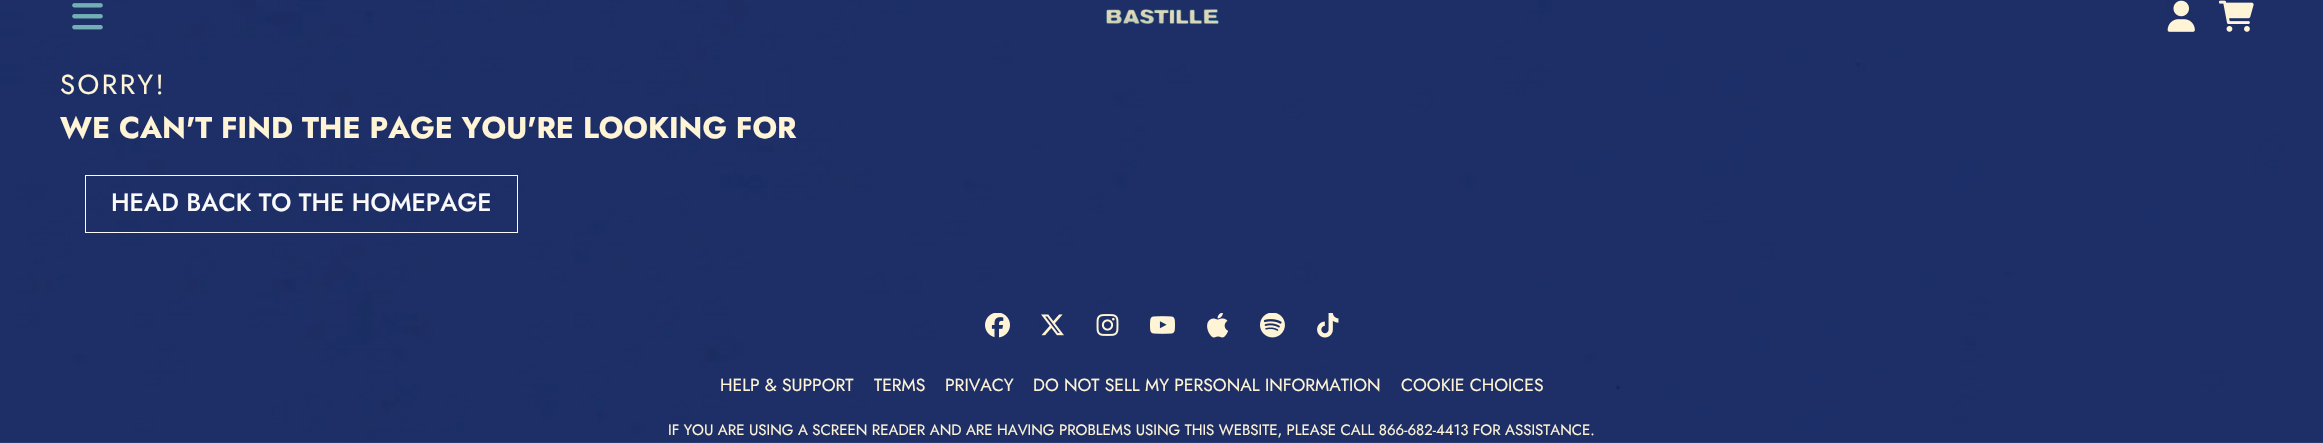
#include "include/core/SkBlurTypes.h"
#include "include/core/SkCanvas.h"
#include "include/core/SkData.h"
#include "include/core/SkFont.h"
#include "include/core/SkFontMgr.h"
#include "include/core/SkImage.h"
#include "include/core/SkMaskFilter.h"
#include "include/core/SkPaint.h"
#include "include/core/SkPathBuilder.h"
#include "include/core/SkTextBlob.h"
#include "include/effects/SkDashPathEffect.h"
#include "include/effects/SkGradientShader.h"
#include "include/utils/SkParsePath.h"

extern sk_sp<SkFontMgr> fontMgr;

void draw(SkCanvas* canvas) {
  SkPaint p;
  p.setAntiAlias(true);
  auto spacedText = [&](const char* s, float x, float y, const SkFont& font, const SkPaint& ink, float letter, float word) {
    std::vector<SkGlyphID> glyphs(font.countText(s, strlen(s), SkTextEncoding::kUTF8));
    std::vector<float> xs(glyphs.size());
    font.textToGlyphs(s, strlen(s), SkTextEncoding::kUTF8, glyphs);
    font.getXPos(glyphs, xs, x);
    float extra = 0;
    for (size_t i = 0; i < glyphs.size(); i++) {
      xs[i] += extra;
      extra += letter + word * (glyphs[i] == font.unicharToGlyph(' '));
    }
    canvas->drawTextBlob(SkTextBlob::MakeFromPosHGlyphs(glyphs, xs, y, font), 0, 0, ink);
  };
  canvas->clear(SK_ColorWHITE);
  canvas->drawImageRect(SkImages::DeferredFromEncodedData(SkData::MakeFromFileName("images/1.png")), SkRect::MakeLTRB(0, 0, 2323, 443), SkSamplingOptions());
  canvas->drawImageRect(SkImages::DeferredFromEncodedData(SkData::MakeFromFileName("images/2.png")), SkRect::MakeLTRB(72, 3, 103, 30), SkSamplingOptions());
  canvas->drawImageRect(SkImages::DeferredFromEncodedData(SkData::MakeFromFileName("images/3.png")), SkRect::MakeLTRB(1106, 9, 1219, 24), SkSamplingOptions());
  canvas->drawImageRect(SkImages::DeferredFromEncodedData(SkData::MakeFromFileName("images/4.png")), SkRect::MakeLTRB(2167, 0, 2195, 32), SkSamplingOptions());
  canvas->drawImageRect(SkImages::DeferredFromEncodedData(SkData::MakeFromFileName("images/5.png")), SkRect::MakeLTRB(2219, 0, 2254, 32), SkSamplingOptions());
  p.setStyle(SkPaint::kStroke_Style);
  p.setStrokeWidth(1);
  p.setColor(SkColorSetRGB(250, 250, 250));
  canvas->drawRect(SkRect::MakeLTRB(85.5f, 175.5f, 517.5f, 232.5f), p);
  canvas->drawImageRect(SkImages::DeferredFromEncodedData(SkData::MakeFromFileName("images/6.png")), SkRect::MakeLTRB(985, 313, 1010, 338), SkSamplingOptions());
  canvas->drawImageRect(SkImages::DeferredFromEncodedData(SkData::MakeFromFileName("images/7.png")), SkRect::MakeLTRB(1041, 314, 1064, 336), SkSamplingOptions());
  canvas->drawImageRect(SkImages::DeferredFromEncodedData(SkData::MakeFromFileName("images/8.png")), SkRect::MakeLTRB(1096, 314, 1119, 336), SkSamplingOptions());
  canvas->drawImageRect(SkImages::DeferredFromEncodedData(SkData::MakeFromFileName("images/9.png")), SkRect::MakeLTRB(1150, 316, 1175, 334), SkSamplingOptions());
  canvas->drawImageRect(SkImages::DeferredFromEncodedData(SkData::MakeFromFileName("images/10.png")), SkRect::MakeLTRB(1207, 313, 1229, 338), SkSamplingOptions());
  canvas->drawImageRect(SkImages::DeferredFromEncodedData(SkData::MakeFromFileName("images/11.png")), SkRect::MakeLTRB(1260, 313, 1285, 338), SkSamplingOptions());
  canvas->drawImageRect(SkImages::DeferredFromEncodedData(SkData::MakeFromFileName("images/12.png")), SkRect::MakeLTRB(1317, 313, 1339, 338), SkSamplingOptions());
  SkFont font1(fontMgr->matchFamilyStyle("Jost", SkFontStyle::Normal()), 27.5f);
  font1.setSubpixel(true);
  p.setStyle(SkPaint::kFill_Style);
  p.setColor(SkColorSetRGB(255, 245, 214));
  spacedText("SORRY!", 60, 94, font1, p, 2.5f, 0);
  SkFont font2(fontMgr->matchFamilyStyle("Jost", SkFontStyle::Bold()), 30);
  font2.setSubpixel(true);
  canvas->drawString("WE CAN'T FIND THE PAGE YOU'RE LOOKING FOR", 60, 138, font2, p);
  SkFont font3(fontMgr->matchFamilyStyle("Jost", SkFontStyle(500, SkFontStyle::kNormal_Width, SkFontStyle::kUpright_Slant)), 25);
  font3.setSubpixel(true);
  p.setColor(SkColorSetRGB(250, 250, 250));
  canvas->drawString("HEAD BACK TO THE HOMEPAGE", 111, 211, font3, p);
  SkFont font4(fontMgr->matchFamilyStyle("Jost", SkFontStyle::Normal()), 17.5f);
  font4.setSubpixel(true);
  p.setColor(SkColorSetRGB(255, 245, 214));
  canvas->drawString("HELP & SUPPORT", 720, 391, font4, p);
  canvas->drawString("TERMS", 874, 391, font4, p);
  canvas->drawString("PRIVACY", 945, 391, font4, p);
  canvas->drawString("DO NOT SELL MY PERSONAL INFORMATION", 1033, 391, font4, p);
  canvas->drawString("COOKIE CHOICES", 1401, 391, font4, p);
  SkFont font5(fontMgr->matchFamilyStyle("Jost", SkFontStyle::Normal()), 15);
  font5.setSubpixel(true);
  canvas->drawString("IF YOU ARE USING A SCREEN READER AND ARE HAVING PROBLEMS USING THIS WEBSITE, PLEASE CALL 866-682-4413 FOR ASSISTANCE.", 668, 435, font5, p);
}
